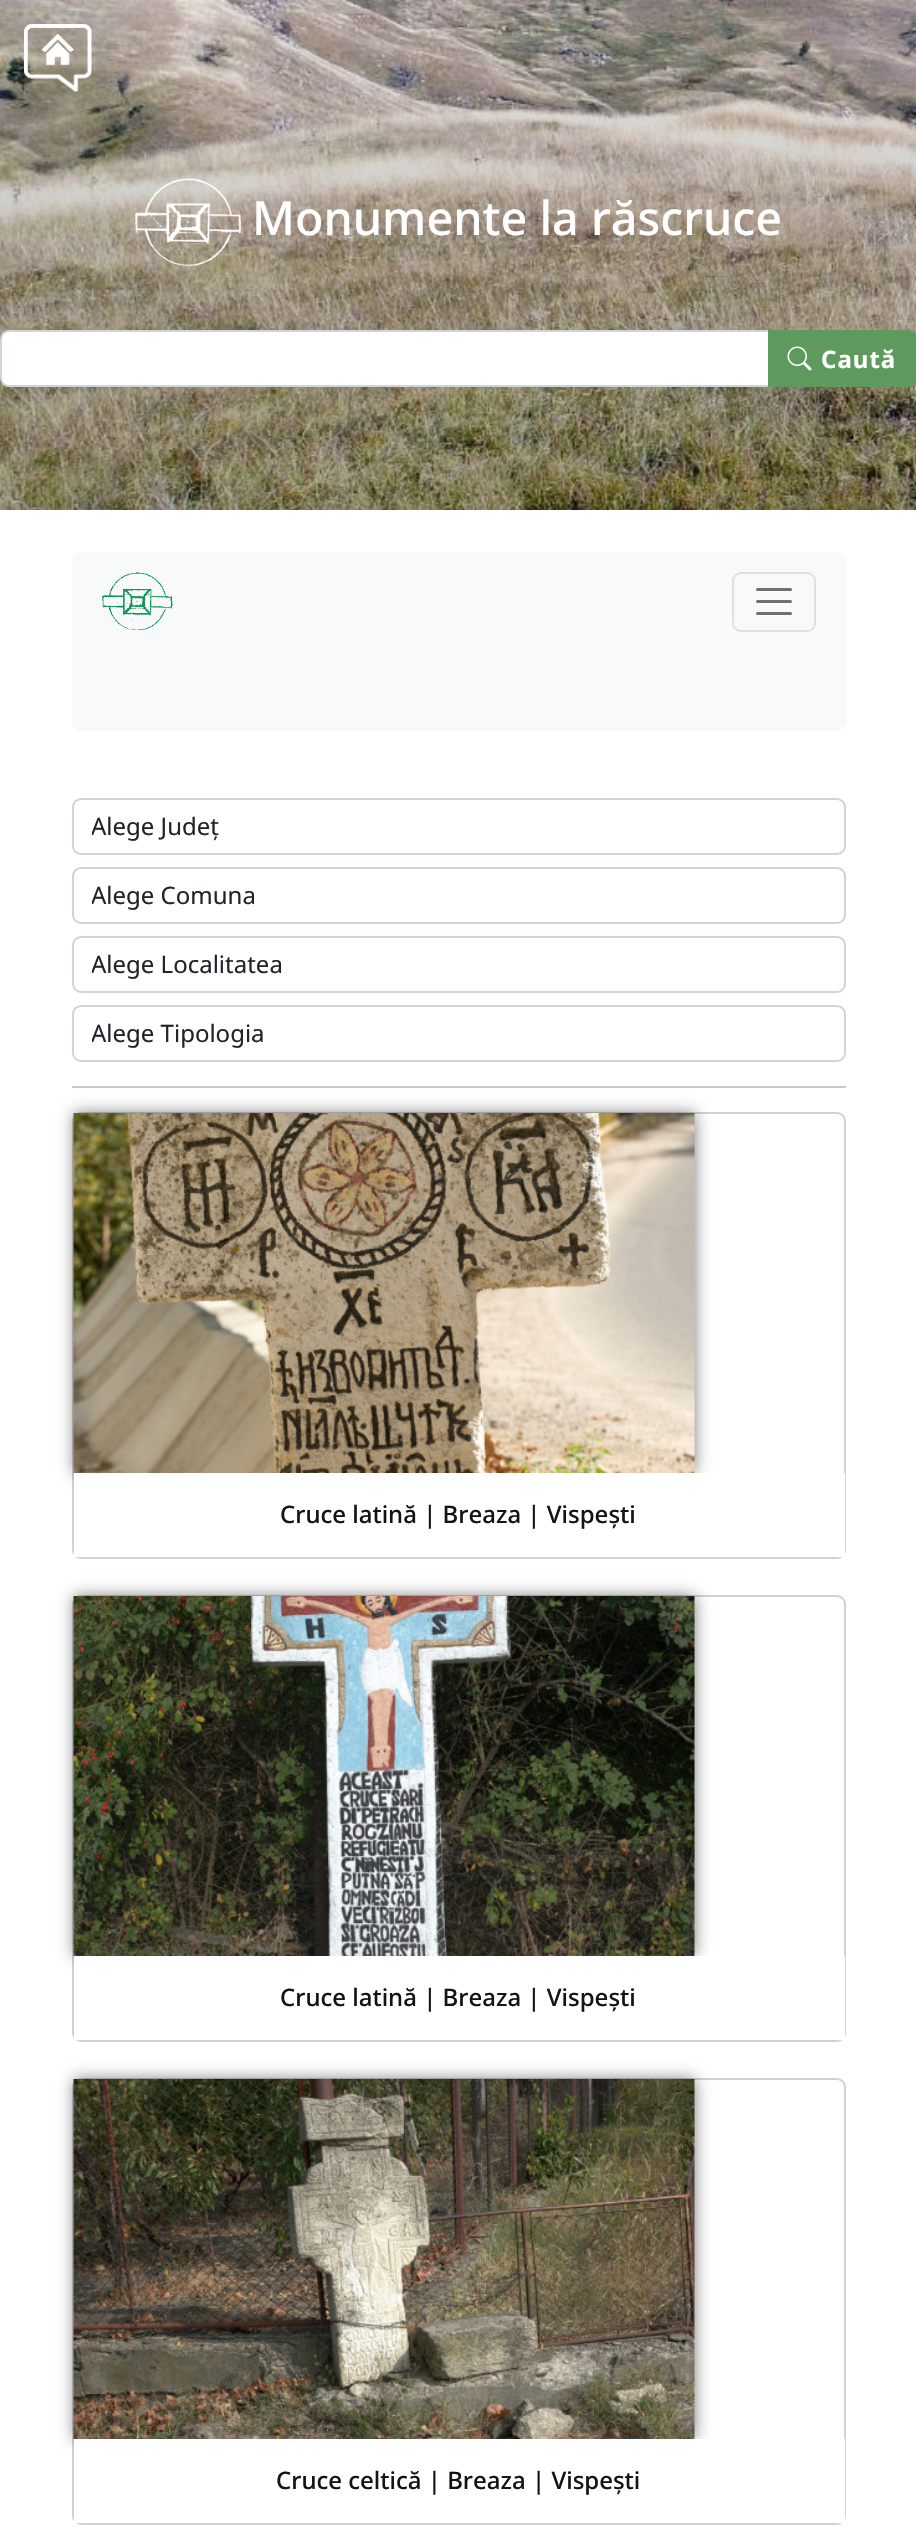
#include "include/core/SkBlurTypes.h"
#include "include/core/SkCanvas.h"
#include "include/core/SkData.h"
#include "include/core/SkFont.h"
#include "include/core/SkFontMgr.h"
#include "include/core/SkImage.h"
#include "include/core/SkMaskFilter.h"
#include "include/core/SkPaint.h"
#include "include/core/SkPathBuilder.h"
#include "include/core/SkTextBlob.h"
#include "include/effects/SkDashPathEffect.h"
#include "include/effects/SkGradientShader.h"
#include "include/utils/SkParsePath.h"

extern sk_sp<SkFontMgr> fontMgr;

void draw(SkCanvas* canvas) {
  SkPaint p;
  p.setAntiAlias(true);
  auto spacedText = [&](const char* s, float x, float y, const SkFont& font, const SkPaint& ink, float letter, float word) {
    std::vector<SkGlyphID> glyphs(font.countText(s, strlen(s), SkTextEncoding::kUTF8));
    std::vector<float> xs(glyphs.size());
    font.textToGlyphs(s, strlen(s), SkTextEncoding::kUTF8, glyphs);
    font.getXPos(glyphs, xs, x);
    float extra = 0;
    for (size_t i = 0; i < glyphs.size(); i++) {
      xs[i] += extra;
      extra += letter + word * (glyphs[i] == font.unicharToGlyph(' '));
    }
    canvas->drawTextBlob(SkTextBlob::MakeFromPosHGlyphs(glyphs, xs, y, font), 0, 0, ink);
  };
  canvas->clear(SK_ColorWHITE);
  canvas->drawImageRect(SkImages::DeferredFromEncodedData(SkData::MakeFromFileName("images/1.png")), SkRect::MakeLTRB(0, 0, 916, 510), SkSamplingOptions());
  canvas->drawImageRect(SkImages::DeferredFromEncodedData(SkData::MakeFromFileName("images/2.png")), SkRect::MakeLTRB(24, 24, 92, 92), SkSamplingOptions());
  canvas->drawImageRect(SkImages::DeferredFromEncodedData(SkData::MakeFromFileName("images/3.png")), SkRect::MakeLTRB(135, 177, 241, 267), SkSamplingOptions());
  p.setColor(SK_ColorWHITE);
  canvas->drawPath(SkPathBuilder().moveTo(9, 331).lineTo(769, 331).lineTo(769, 386).lineTo(9, 386).cubicTo(4.5f, 386, 1, 382.5f, 1, 378).lineTo(1, 339).cubicTo(1, 334.5f, 4.5f, 331, 9, 331).close().detach(), p);
  p.setStyle(SkPaint::kStroke_Style);
  p.setStrokeWidth(2);
  p.setColor(SkColorSetRGB(206, 212, 218));
  canvas->drawPath(SkPathBuilder().moveTo(9, 331).lineTo(769, 331).lineTo(769, 386).lineTo(9, 386).cubicTo(4.5f, 386, 1, 382.5f, 1, 378).lineTo(1, 339).cubicTo(1, 334.5f, 4.5f, 331, 9, 331).close().detach(), p);
  p.setStyle(SkPaint::kFill_Style);
  p.setColor(SkColorSetRGB(94, 153, 94));
  canvas->drawPath(SkPathBuilder().moveTo(769, 331).lineTo(908, 331).cubicTo(912.5f, 331, 916, 334.5f, 916, 339).lineTo(916, 378).cubicTo(916, 382.5f, 912.5f, 386, 908, 386).lineTo(769, 386).close().detach(), p);
  p.setStyle(SkPaint::kStroke_Style);
  canvas->drawPath(SkPathBuilder().moveTo(769, 331).lineTo(908, 331).cubicTo(912.5f, 331, 916, 334.5f, 916, 339).lineTo(916, 378).cubicTo(916, 382.5f, 912.5f, 386, 908, 386).lineTo(769, 386).close().detach(), p);
  canvas->drawImageRect(SkImages::DeferredFromEncodedData(SkData::MakeFromFileName("images/4.png")), SkRect::MakeLTRB(787, 346, 812, 371), SkSamplingOptions());
  p.setStyle(SkPaint::kFill_Style);
  p.setColor(SkColorSetRGB(248, 249, 250));
  canvas->drawRoundRect(SkRect::MakeLTRB(72, 552, 846, 731), 9, 9, p);
  canvas->drawImageRect(SkImages::DeferredFromEncodedData(SkData::MakeFromFileName("images/5.png")), SkRect::MakeLTRB(102, 571, 173, 630), SkSamplingOptions());
  p.setStyle(SkPaint::kStroke_Style);
  p.setColor(SkColorSetRGB(223, 224, 225));
  canvas->drawRoundRect(SkRect::MakeLTRB(733, 573, 815, 631), 8, 8, p);
  p.setStrokeWidth(3);
  p.setStrokeCap(SkPaint::kRound_Cap);
  p.setColor(SkColorSetRGB(112, 112, 113));
  canvas->drawPath(SkPathBuilder().moveTo(757.5f, 589.5f).lineTo(790.5f, 589.5f).moveTo(757.5f, 601.5f).lineTo(790.5f, 601.5f).moveTo(757.5f, 613.5f).lineTo(790.5f, 613.5f).detach(), p);
  p.setStrokeWidth(2);
  p.setStrokeCap(SkPaint::kButt_Cap);
  p.setColor(SkColorSetRGB(206, 212, 218));
  canvas->drawRoundRect(SkRect::MakeLTRB(73, 799, 845, 854), 8, 8, p);
  canvas->drawRoundRect(SkRect::MakeLTRB(73, 868, 845, 923), 8, 8, p);
  canvas->drawRoundRect(SkRect::MakeLTRB(73, 937, 845, 992), 8, 8, p);
  canvas->drawRoundRect(SkRect::MakeLTRB(73, 1006, 845, 1061), 8, 8, p);
  p.setStyle(SkPaint::kFill_Style);
  p.setColor(SkColorSetRGB(200, 201, 202));
  canvas->drawRect(SkRect::MakeLTRB(72, 1086, 846, 1088), p);
  p.setStyle(SkPaint::kStroke_Style);
  p.setColor(SkColorSetRGB(210, 210, 210));
  canvas->drawRoundRect(SkRect::MakeLTRB(73, 1113, 845, 1558), 8, 8, p);
  p.setStyle(SkPaint::kFill_Style);
  p.setColor(SkColorSetARGB(128, 0, 0, 0));
  p.setMaskFilter(SkMaskFilter::MakeBlur(kNormal_SkBlurStyle, 7.5f));
  canvas->drawRect(SkRect::MakeLTRB(74, 1113, 695, 1473), p);
  p.setMaskFilter(nullptr);
  canvas->drawImageRect(SkImages::DeferredFromEncodedData(SkData::MakeFromFileName("images/6.png")), SkRect::MakeLTRB(73, 1113, 695, 1473), SkSamplingOptions());
  p.setColor(SK_ColorWHITE);
  canvas->drawRect(SkRect::MakeLTRB(74, 1473, 845, 1557), p);
  p.setStyle(SkPaint::kStroke_Style);
  p.setColor(SkColorSetRGB(210, 210, 210));
  canvas->drawRoundRect(SkRect::MakeLTRB(73, 1596, 845, 2041), 8, 8, p);
  p.setStyle(SkPaint::kFill_Style);
  p.setColor(SkColorSetARGB(128, 0, 0, 0));
  p.setMaskFilter(SkMaskFilter::MakeBlur(kNormal_SkBlurStyle, 7.5f));
  canvas->drawRect(SkRect::MakeLTRB(74, 1596, 695, 1956), p);
  p.setMaskFilter(nullptr);
  canvas->drawImageRect(SkImages::DeferredFromEncodedData(SkData::MakeFromFileName("images/7.png")), SkRect::MakeLTRB(73, 1596, 695, 1956), SkSamplingOptions());
  p.setColor(SK_ColorWHITE);
  canvas->drawRect(SkRect::MakeLTRB(74, 1956, 845, 2040), p);
  p.setStyle(SkPaint::kStroke_Style);
  p.setColor(SkColorSetRGB(210, 210, 210));
  canvas->drawRoundRect(SkRect::MakeLTRB(73, 2079, 845, 2524), 8, 8, p);
  p.setStyle(SkPaint::kFill_Style);
  p.setColor(SkColorSetARGB(128, 0, 0, 0));
  p.setMaskFilter(SkMaskFilter::MakeBlur(kNormal_SkBlurStyle, 7.5f));
  canvas->drawRect(SkRect::MakeLTRB(74, 2079, 695, 2439), p);
  p.setMaskFilter(nullptr);
  canvas->drawImageRect(SkImages::DeferredFromEncodedData(SkData::MakeFromFileName("images/8.png")), SkRect::MakeLTRB(73, 2079, 695, 2439), SkSamplingOptions());
  p.setColor(SK_ColorWHITE);
  canvas->drawRect(SkRect::MakeLTRB(74, 2439, 845, 2523), p);
  SkFont font1(fontMgr->matchFamilyStyle("Noto Sans", SkFontStyle(500, SkFontStyle::kNormal_Width, SkFontStyle::kUpright_Slant)), 46.75f);
  font1.setSubpixel(true);
  canvas->drawString("Monumente la răscruce", 252, 235, font1, p);
  SkFont font2(fontMgr->matchFamilyStyle("Noto Sans", SkFontStyle::Bold()), 24);
  font2.setSubpixel(true);
  spacedText("Caută", 821, 368, font2, p, 1, 0);
  canvas->save();
  canvas->clipRect(SkRect::MakeLTRB(92, 809, 827, 845));
  SkFont font3(fontMgr->matchFamilyStyle("Noto Sans", SkFontStyle::Normal()), 24);
  font3.setSubpixel(true);
  p.setColor(SkColorSetRGB(33, 37, 41));
  canvas->drawString("Alege Județ", 91, 835, font3, p);
  canvas->restore();
  canvas->save();
  canvas->clipRect(SkRect::MakeLTRB(92, 878, 827, 914));
  canvas->drawString("Alege Comuna", 91, 904, font3, p);
  canvas->restore();
  canvas->save();
  canvas->clipRect(SkRect::MakeLTRB(92, 947, 827, 983));
  canvas->drawString("Alege Localitatea", 91, 973, font3, p);
  canvas->restore();
  canvas->save();
  canvas->clipRect(SkRect::MakeLTRB(92, 1016, 827, 1052));
  canvas->drawString("Alege Tipologia", 91, 1042, font3, p);
  canvas->restore();
  SkFont font4(fontMgr->matchFamilyStyle("Noto Sans", SkFontStyle(500, SkFontStyle::kNormal_Width, SkFontStyle::kUpright_Slant)), 24);
  font4.setSubpixel(true);
  p.setColor(SkColorSetRGB(20, 20, 20));
  canvas->drawString("Cruce latină | Breaza | Vispești", 280, 1523, font4, p);
  canvas->drawString("Cruce latină | Breaza | Vispești", 280, 2006, font4, p);
  canvas->drawString("Cruce celtică | Breaza | Vispești", 276, 2489, font4, p);
}
